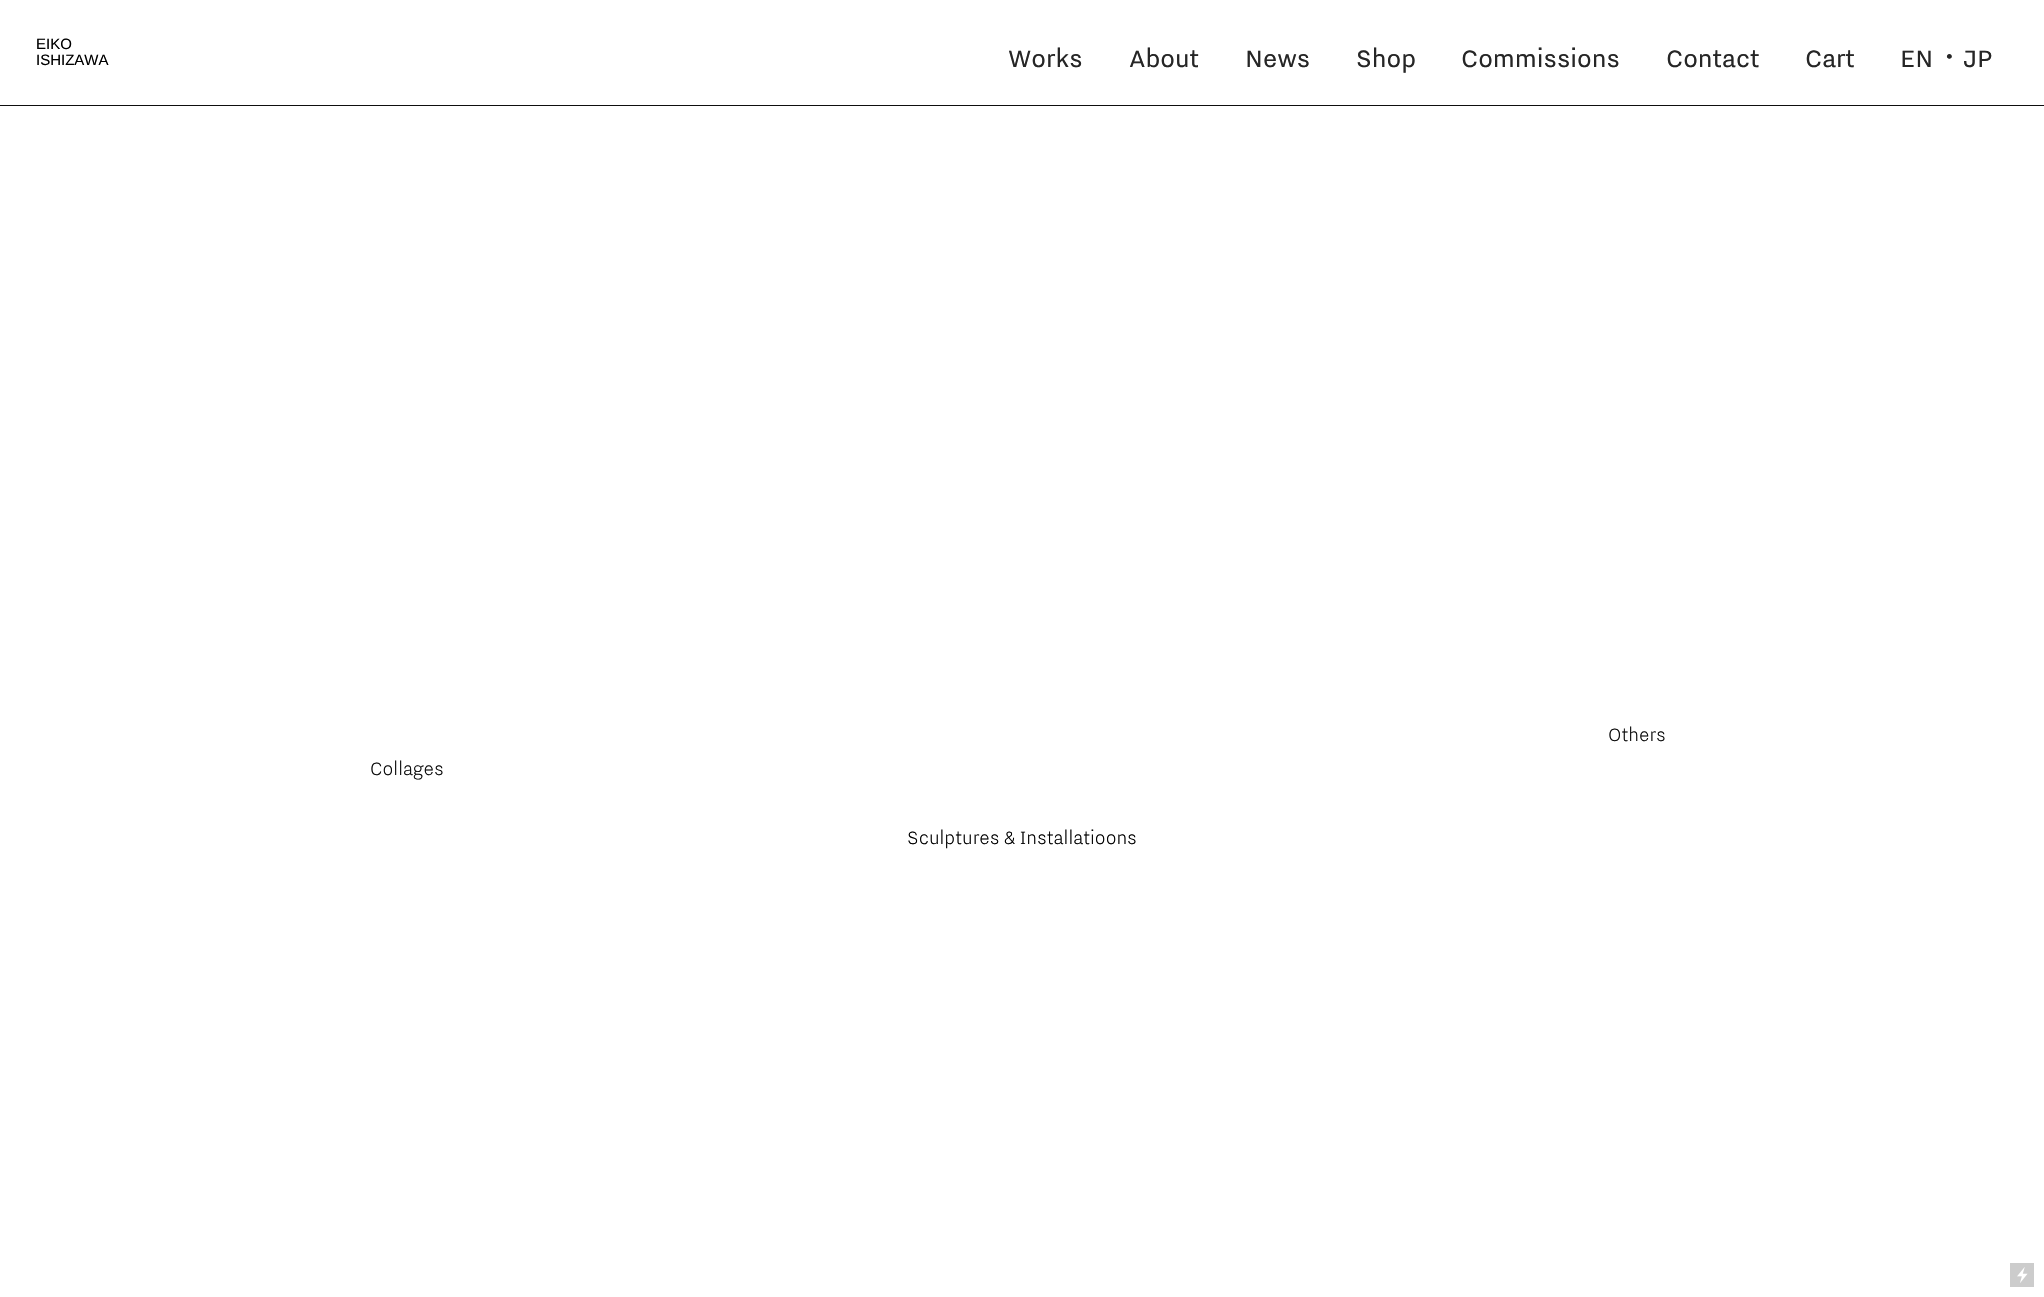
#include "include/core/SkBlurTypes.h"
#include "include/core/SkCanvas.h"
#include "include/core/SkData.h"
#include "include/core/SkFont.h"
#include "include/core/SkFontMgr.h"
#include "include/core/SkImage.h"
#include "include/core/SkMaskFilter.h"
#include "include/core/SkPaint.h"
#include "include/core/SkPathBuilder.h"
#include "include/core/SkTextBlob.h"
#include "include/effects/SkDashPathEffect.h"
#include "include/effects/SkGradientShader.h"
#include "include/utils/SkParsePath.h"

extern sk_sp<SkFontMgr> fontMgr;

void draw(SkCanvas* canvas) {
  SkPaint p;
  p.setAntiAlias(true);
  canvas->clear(SK_ColorWHITE);
  p.setColor(SkColorSetRGB(14, 14, 14));
  canvas->drawRect(SkRect::MakeLTRB(0, 105, 2044, 106), p);
  p.setColor(SkColorSetRGB(204, 204, 204));
  canvas->drawRect(SkRect::MakeLTRB(2010, 1263, 2034, 1287), p);
  canvas->drawImageRect(SkImages::DeferredFromEncodedData(SkData::MakeFromFileName("images/1.png")), SkRect::MakeLTRB(2017, 1267, 2028, 1283), SkSamplingOptions());
  SkFont font1(fontMgr->matchFamilyStyle("Liberation Sans", SkFontStyle::Normal()), 15);
  font1.setSubpixel(true);
  p.setColor(SK_ColorBLACK);
  canvas->drawString("EIKO", 36, 49, font1, p);
  canvas->drawString("ISHIZAWA", 36, 65, font1, p);
  SkFont font2(fontMgr->matchFamilyStyle("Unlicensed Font", SkFontStyle::Normal()), 30);
  font2.setSubpixel(true);
  p.setColor(SkColorSetRGB(38, 38, 38));
  canvas->drawString("Works", 1008, 67, font2, p);
  canvas->drawString("About", 1129, 67, font2, p);
  canvas->drawString("News", 1245, 67, font2, p);
  canvas->drawString("Shop", 1356, 67, font2, p);
  canvas->drawString("Commissions", 1461, 67, font2, p);
  canvas->drawString("Contact", 1666, 67, font2, p);
  canvas->drawString("Cart", 1805, 67, font2, p);
  canvas->drawString("EN", 1900, 67, font2, p);
  SkFont font3(fontMgr->matchFamilyStyle("WenQuanYi Zen Hei", SkFontStyle(500, SkFontStyle::kNormal_Width, SkFontStyle::kUpright_Slant)), 30);
  font3.setSubpixel(true);
  canvas->drawString("・", 1934, 67, font3, p);
  canvas->drawString("JP", 1963, 67, font2, p);
  SkFont font4(fontMgr->matchFamilyStyle("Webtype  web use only", SkFontStyle(300, SkFontStyle::kNormal_Width, SkFontStyle::kUpright_Slant)), 22.5f);
  font4.setSubpixel(true);
  p.setColor(SkColorSetRGB(10, 10, 10));
  canvas->drawString("Others", 1608, 741, font4, p);
  canvas->drawString("Collages", 370, 775, font4, p);
  p.setColor(SK_ColorBLACK);
  canvas->drawString("Sculptures & Installatioons", 907, 844, font4, p);
}
